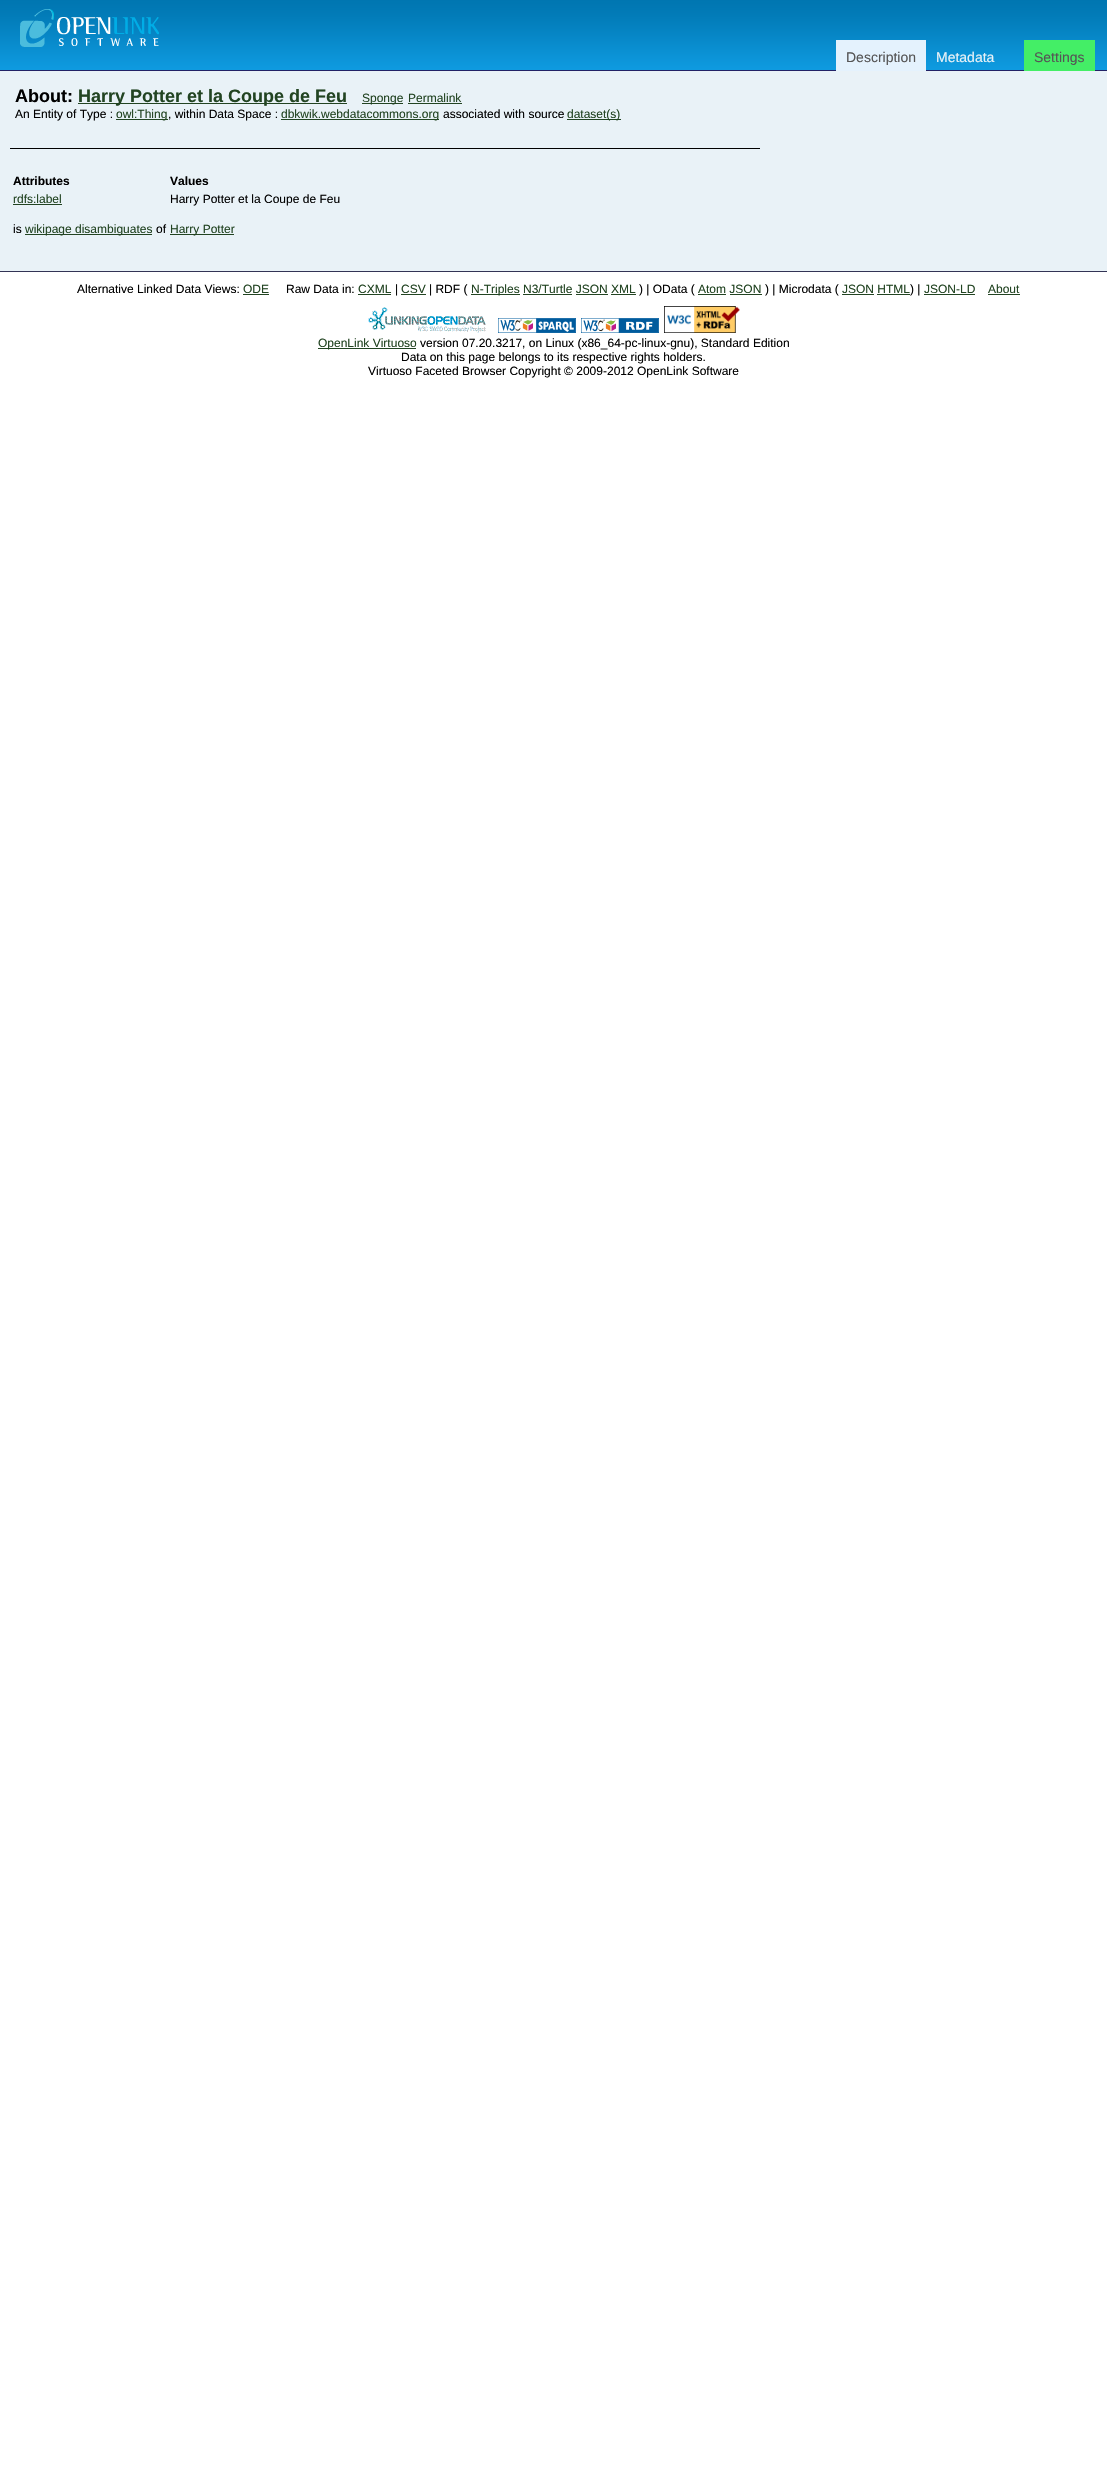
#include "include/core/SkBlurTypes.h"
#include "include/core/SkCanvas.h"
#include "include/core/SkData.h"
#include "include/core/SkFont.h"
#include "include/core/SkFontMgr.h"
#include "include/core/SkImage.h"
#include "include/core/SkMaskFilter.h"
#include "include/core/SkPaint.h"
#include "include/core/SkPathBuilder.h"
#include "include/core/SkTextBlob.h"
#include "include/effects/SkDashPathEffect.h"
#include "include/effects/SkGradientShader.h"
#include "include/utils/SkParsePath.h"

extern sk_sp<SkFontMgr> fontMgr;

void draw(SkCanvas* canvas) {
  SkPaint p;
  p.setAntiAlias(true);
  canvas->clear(SK_ColorWHITE);
  canvas->drawImageRect(SkImages::DeferredFromEncodedData(SkData::MakeFromFileName("images/1.png")), SkRect::MakeLTRB(0, 0, 1107, 70), SkSamplingOptions());
  p.setColor(SkColorSetRGB(34, 34, 102));
  canvas->drawRect(SkRect::MakeLTRB(0, 70, 1107, 71), p);
  canvas->drawImageRect(SkImages::DeferredFromEncodedData(SkData::MakeFromFileName("images/2.png")), SkRect::MakeLTRB(20, 9, 159, 47), SkSamplingOptions());
  p.setColor(SkColorSetRGB(228, 242, 253));
  canvas->drawRect(SkRect::MakeLTRB(836, 40, 926, 71), p);
  p.setColor(SkColorSetRGB(68, 238, 102));
  canvas->drawRect(SkRect::MakeLTRB(1024, 40, 1095, 71), p);
  p.setColor(SkColorSetRGB(233, 242, 247));
  canvas->drawRect(SkRect::MakeLTRB(0, 71, 1107, 271), p);
  p.setColor(SkColorSetRGB(34, 68, 34));
  canvas->drawRect(SkRect::MakeLTRB(78, 103, 347, 104), p);
  canvas->drawRect(SkRect::MakeLTRB(362, 103, 403, 104), p);
  canvas->drawRect(SkRect::MakeLTRB(408, 103, 462, 104), p);
  canvas->drawRect(SkRect::MakeLTRB(116, 119, 168, 120), p);
  canvas->drawRect(SkRect::MakeLTRB(281, 119, 439, 120), p);
  canvas->drawRect(SkRect::MakeLTRB(567, 119, 621, 120), p);
  p.setColor(SK_ColorBLACK);
  canvas->drawRect(SkRect::MakeLTRB(10, 148, 760, 149), p);
  p.setColor(SkColorSetRGB(34, 68, 34));
  canvas->drawRect(SkRect::MakeLTRB(13, 204, 62, 205), p);
  canvas->drawRect(SkRect::MakeLTRB(25, 234, 152, 235), p);
  canvas->drawRect(SkRect::MakeLTRB(170, 234, 234, 235), p);
  p.setColor(SkColorSetRGB(51, 51, 85));
  canvas->drawRect(SkRect::MakeLTRB(0, 271, 1107, 272), p);
  p.setColor(SkColorSetRGB(34, 68, 34));
  canvas->drawRect(SkRect::MakeLTRB(243, 294, 269, 295), p);
  canvas->drawRect(SkRect::MakeLTRB(358, 294, 391, 295), p);
  canvas->drawRect(SkRect::MakeLTRB(401, 294, 426, 295), p);
  canvas->drawRect(SkRect::MakeLTRB(471, 294, 520, 295), p);
  canvas->drawRect(SkRect::MakeLTRB(698, 294, 726, 295), p);
  canvas->drawRect(SkRect::MakeLTRB(842, 294, 874, 295), p);
  canvas->drawRect(SkRect::MakeLTRB(924, 294, 975, 295), p);
  canvas->drawRect(SkRect::MakeLTRB(988, 294, 1020, 295), p);
  canvas->drawRect(SkRect::MakeLTRB(523, 294, 572, 295), p);
  canvas->drawRect(SkRect::MakeLTRB(576, 294, 608, 295), p);
  canvas->drawRect(SkRect::MakeLTRB(611, 294, 636, 295), p);
  canvas->drawRect(SkRect::MakeLTRB(730, 294, 762, 295), p);
  canvas->drawRect(SkRect::MakeLTRB(877, 294, 910, 295), p);
  canvas->drawImageRect(SkImages::DeferredFromEncodedData(SkData::MakeFromFileName("images/3.png")), SkRect::MakeLTRB(368, 307, 486, 333), SkSamplingOptions());
  canvas->drawImageRect(SkImages::DeferredFromEncodedData(SkData::MakeFromFileName("images/4.png")), SkRect::MakeLTRB(498, 318, 576, 333), SkSamplingOptions());
  canvas->drawImageRect(SkImages::DeferredFromEncodedData(SkData::MakeFromFileName("images/5.png")), SkRect::MakeLTRB(581, 318, 659, 333), SkSamplingOptions());
  canvas->drawImageRect(SkImages::DeferredFromEncodedData(SkData::MakeFromFileName("images/6.png")), SkRect::MakeLTRB(664, 306, 740, 333), SkSamplingOptions());
  canvas->drawRect(SkRect::MakeLTRB(318, 348, 416, 349), p);
  SkFont font1(fontMgr->matchFamilyStyle("Liberation Sans", SkFontStyle::Normal()), 14);
  font1.setSubpixel(true);
  p.setColor(SkColorSetRGB(85, 85, 85));
  canvas->drawString("Description", 846, 62, font1, p);
  p.setColor(SkColorSetRGB(233, 242, 247));
  canvas->drawString("Metadata", 936, 62, font1, p);
  p.setColor(SkColorSetRGB(85, 85, 85));
  canvas->drawString("Settings", 1034, 62, font1, p);
  SkFont font2(fontMgr->matchFamilyStyle("Liberation Sans", SkFontStyle::Bold()), 18);
  font2.setSubpixel(true);
  p.setColor(SK_ColorBLACK);
  canvas->drawString("About:", 15, 102, font2, p);
  p.setColor(SkColorSetRGB(34, 68, 34));
  canvas->drawString("Harry Potter et la Coupe de Feu", 78, 102, font2, p);
  SkFont font3(fontMgr->matchFamilyStyle("Liberation Sans", SkFontStyle::Normal()), 12);
  font3.setSubpixel(true);
  canvas->drawString("Sponge", 362, 102, font3, p);
  canvas->drawString("Permalink", 408, 102, font3, p);
  p.setColor(SK_ColorBLACK);
  canvas->drawString("An Entity of Type :", 15, 118, font3, p);
  p.setColor(SkColorSetRGB(34, 68, 34));
  canvas->drawString("owl:Thing", 116, 118, font3, p);
  p.setColor(SK_ColorBLACK);
  canvas->drawString(", within Data Space :", 168, 118, font3, p);
  p.setColor(SkColorSetRGB(34, 68, 34));
  canvas->drawString("dbkwik.webdatacommons.org", 281, 118, font3, p);
  p.setColor(SK_ColorBLACK);
  canvas->drawString("associated with source", 443, 118, font3, p);
  p.setColor(SkColorSetRGB(34, 68, 34));
  canvas->drawString("dataset(s)", 567, 118, font3, p);
  SkFont font4(fontMgr->matchFamilyStyle("Liberation Sans", SkFontStyle::Bold()), 12);
  font4.setSubpixel(true);
  p.setColor(SK_ColorBLACK);
  canvas->drawString("Attributes", 13, 185, font4, p);
  canvas->drawString("Values", 170, 185, font4, p);
  p.setColor(SkColorSetRGB(34, 68, 34));
  canvas->drawString("rdfs:label", 13, 203, font3, p);
  p.setColor(SK_ColorBLACK);
  canvas->drawString("Harry Potter et la Coupe de Feu", 170, 203, font3, p);
  canvas->drawString("is", 13, 233, font3, p);
  p.setColor(SkColorSetRGB(34, 68, 34));
  canvas->drawString("wikipage disambiguates", 25, 233, font3, p);
  p.setColor(SK_ColorBLACK);
  canvas->drawString("of", 156, 233, font3, p);
  p.setColor(SkColorSetRGB(34, 68, 34));
  canvas->drawString("Harry Potter", 170, 233, font3, p);
  p.setColor(SK_ColorBLACK);
  canvas->drawString("Alternative Linked Data Views:", 77, 293, font3, p);
  p.setColor(SkColorSetRGB(34, 68, 34));
  canvas->drawString("ODE", 243, 293, font3, p);
  p.setColor(SK_ColorBLACK);
  canvas->drawString("Raw Data in:", 286, 293, font3, p);
  p.setColor(SkColorSetRGB(34, 68, 34));
  canvas->drawString("CXML", 358, 293, font3, p);
  p.setColor(SK_ColorBLACK);
  canvas->drawString("|", 395, 293, font3, p);
  p.setColor(SkColorSetRGB(34, 68, 34));
  canvas->drawString("CSV", 401, 293, font3, p);
  p.setColor(SK_ColorBLACK);
  canvas->drawString("| RDF (", 429, 293, font3, p);
  p.setColor(SkColorSetRGB(34, 68, 34));
  canvas->drawString("N-Triples N3/Turtle JSON XML", 471, 293, font3, p);
  p.setColor(SK_ColorBLACK);
  canvas->drawString(") | OData (", 639, 293, font3, p);
  p.setColor(SkColorSetRGB(34, 68, 34));
  canvas->drawString("Atom JSON", 698, 293, font3, p);
  p.setColor(SK_ColorBLACK);
  canvas->drawString(") | Microdata (", 765, 293, font3, p);
  p.setColor(SkColorSetRGB(34, 68, 34));
  canvas->drawString("JSON HTML", 842, 293, font3, p);
  p.setColor(SK_ColorBLACK);
  canvas->drawString(") |", 910, 293, font3, p);
  p.setColor(SkColorSetRGB(34, 68, 34));
  canvas->drawString("JSON-LD", 924, 293, font3, p);
  canvas->drawString("About", 988, 293, font3, p);
  canvas->drawString("OpenLink Virtuoso", 318, 347, font3, p);
  p.setColor(SK_ColorBLACK);
  canvas->drawString("version 07.20.3217, on Linux (x86_64-pc-linux-gnu), Standard Edition", 420, 347, font3, p);
  canvas->drawString("Data on this page belongs to its respective rights holders.", 401, 361, font3, p);
  canvas->drawString("Virtuoso Faceted Browser Copyright © 2009-2012 OpenLink Software", 368, 375, font3, p);
}
